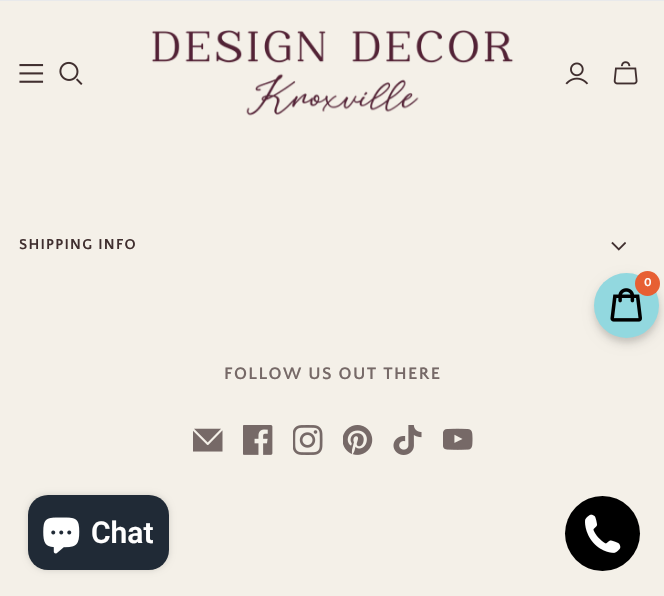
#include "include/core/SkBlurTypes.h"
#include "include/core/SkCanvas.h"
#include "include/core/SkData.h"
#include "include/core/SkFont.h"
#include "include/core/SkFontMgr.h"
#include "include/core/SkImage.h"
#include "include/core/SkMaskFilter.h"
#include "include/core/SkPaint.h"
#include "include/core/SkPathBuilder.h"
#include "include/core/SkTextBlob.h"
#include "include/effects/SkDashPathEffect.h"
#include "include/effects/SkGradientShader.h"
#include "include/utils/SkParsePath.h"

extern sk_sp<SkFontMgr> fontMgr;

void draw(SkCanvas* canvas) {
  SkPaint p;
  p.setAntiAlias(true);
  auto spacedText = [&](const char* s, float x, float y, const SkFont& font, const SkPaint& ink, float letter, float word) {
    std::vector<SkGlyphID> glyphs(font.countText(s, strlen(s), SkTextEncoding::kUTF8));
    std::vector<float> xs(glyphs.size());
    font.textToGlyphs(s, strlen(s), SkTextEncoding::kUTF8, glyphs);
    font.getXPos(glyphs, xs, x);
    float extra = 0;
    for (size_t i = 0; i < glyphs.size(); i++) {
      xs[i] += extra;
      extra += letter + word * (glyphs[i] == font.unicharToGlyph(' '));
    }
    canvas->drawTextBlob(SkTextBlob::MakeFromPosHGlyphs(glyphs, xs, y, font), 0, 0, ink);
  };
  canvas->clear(SkColorSetRGB(244, 240, 232));
  p.setColor(SkColorSetRGB(232, 233, 235));
  canvas->drawRect(SkRect::MakeLTRB(0, 0, 664, 1), p);
  canvas->drawImageRect(SkImages::DeferredFromEncodedData(SkData::MakeFromFileName("images/1.png")), SkRect::MakeLTRB(151, 30, 514, 116), SkSamplingOptions());
  canvas->drawImageRect(SkImages::DeferredFromEncodedData(SkData::MakeFromFileName("images/2.png")), SkRect::MakeLTRB(19, 64, 44, 83), SkSamplingOptions());
  canvas->drawImageRect(SkImages::DeferredFromEncodedData(SkData::MakeFromFileName("images/3.png")), SkRect::MakeLTRB(59, 61, 83, 85), SkSamplingOptions());
  canvas->drawImageRect(SkImages::DeferredFromEncodedData(SkData::MakeFromFileName("images/4.png")), SkRect::MakeLTRB(565, 62, 589, 85), SkSamplingOptions());
  canvas->drawImageRect(SkImages::DeferredFromEncodedData(SkData::MakeFromFileName("images/5.png")), SkRect::MakeLTRB(613, 61, 638, 85), SkSamplingOptions());
  canvas->drawImageRect(SkImages::DeferredFromEncodedData(SkData::MakeFromFileName("images/6.png")), SkRect::MakeLTRB(611, 241, 626, 251), SkSamplingOptions());
  p.setColor(SkColorSetARGB(20, 0, 0, 0));
  p.setMaskFilter(SkMaskFilter::MakeBlur(kNormal_SkBlurStyle, 2.5f));
  canvas->drawRoundRect(SkRect::MakeLTRB(594, 278, 659, 343), 32.5f, 32.5f, p);
  p.setMaskFilter(nullptr);
  p.setColor(SkColorSetARGB(31, 0, 0, 0));
  p.setMaskFilter(SkMaskFilter::MakeBlur(kNormal_SkBlurStyle, 6));
  canvas->drawRoundRect(SkRect::MakeLTRB(595, 278, 660, 343), 32.5f, 32.5f, p);
  p.setMaskFilter(nullptr);
  p.setColor(SkColorSetRGB(146, 216, 223));
  canvas->drawCircle(626.5f, 305.5f, 32.5f, p);
  canvas->drawImageRect(SkImages::DeferredFromEncodedData(SkData::MakeFromFileName("images/7.png")), SkRect::MakeLTRB(610, 288, 642, 322), SkSamplingOptions());
  p.setColor(SkColorSetRGB(231, 95, 51));
  canvas->drawCircle(647.5f, 283.5f, 12.5f, p);
  canvas->drawImageRect(SkImages::DeferredFromEncodedData(SkData::MakeFromFileName("images/8.png")), SkRect::MakeLTRB(193, 428, 223, 452), SkSamplingOptions());
  canvas->drawImageRect(SkImages::DeferredFromEncodedData(SkData::MakeFromFileName("images/9.png")), SkRect::MakeLTRB(243, 425, 273, 455), SkSamplingOptions());
  canvas->drawImageRect(SkImages::DeferredFromEncodedData(SkData::MakeFromFileName("images/10.png")), SkRect::MakeLTRB(293, 425, 323, 455), SkSamplingOptions());
  canvas->drawImageRect(SkImages::DeferredFromEncodedData(SkData::MakeFromFileName("images/11.png")), SkRect::MakeLTRB(343, 425, 373, 455), SkSamplingOptions());
  canvas->drawImageRect(SkImages::DeferredFromEncodedData(SkData::MakeFromFileName("images/12.png")), SkRect::MakeLTRB(393, 425, 422, 455), SkSamplingOptions());
  canvas->drawImageRect(SkImages::DeferredFromEncodedData(SkData::MakeFromFileName("images/13.png")), SkRect::MakeLTRB(443, 428, 473, 450), SkSamplingOptions());
  p.setColor(SkColorSetARGB(38, 0, 0, 0));
  p.setMaskFilter(SkMaskFilter::MakeBlur(kNormal_SkBlurStyle, 3));
  canvas->drawRoundRect(SkRect::MakeLTRB(28, 495, 169, 570), 20, 20, p);
  p.setMaskFilter(nullptr);
  p.setColor(SkColorSetRGB(32, 42, 54));
  canvas->drawRoundRect(SkRect::MakeLTRB(28, 495, 169, 570), 20, 20, p);
  canvas->drawImageRect(SkImages::DeferredFromEncodedData(SkData::MakeFromFileName("images/14.png")), SkRect::MakeLTRB(43, 517, 80, 554), SkSamplingOptions());
  p.setColor(SK_ColorBLACK);
  canvas->drawCircle(602.5f, 533.5f, 37.5f, p);
  canvas->drawImageRect(SkImages::DeferredFromEncodedData(SkData::MakeFromFileName("images/15.png")), SkRect::MakeLTRB(585, 514, 621, 553), SkSamplingOptions());
  SkFont font1(fontMgr->matchFamilyStyle("Quattrocento Sans", SkFontStyle::Bold()), 15);
  font1.setSubpixel(true);
  p.setColor(SkColorSetRGB(64, 47, 47));
  spacedText("SHIPPING INFO", 19, 249, font1, p, 1.25f, 0);
  SkFont font2(fontMgr->matchFamilyStyle("Quattrocento Sans", SkFontStyle::Bold()), 12);
  font2.setSubpixel(true);
  p.setColor(SK_ColorWHITE);
  canvas->drawString("0", 644, 286, font2, p);
  SkFont font3(fontMgr->matchFamilyStyle("Quattrocento Sans", SkFontStyle::Bold()), 17.5f);
  font3.setSubpixel(true);
  p.setColor(SkColorSetRGB(118, 105, 103));
  spacedText("FOLLOW US OUT THERE", 224, 379, font3, p, 1.4f, 0);
  SkFont font4(fontMgr->matchFamilyStyle("Roboto", SkFontStyle(600, SkFontStyle::kNormal_Width, SkFontStyle::kUpright_Slant)), 30);
  font4.setSubpixel(true);
  p.setColor(SK_ColorWHITE);
  canvas->drawString("Chat", 91, 543, font4, p);
}
